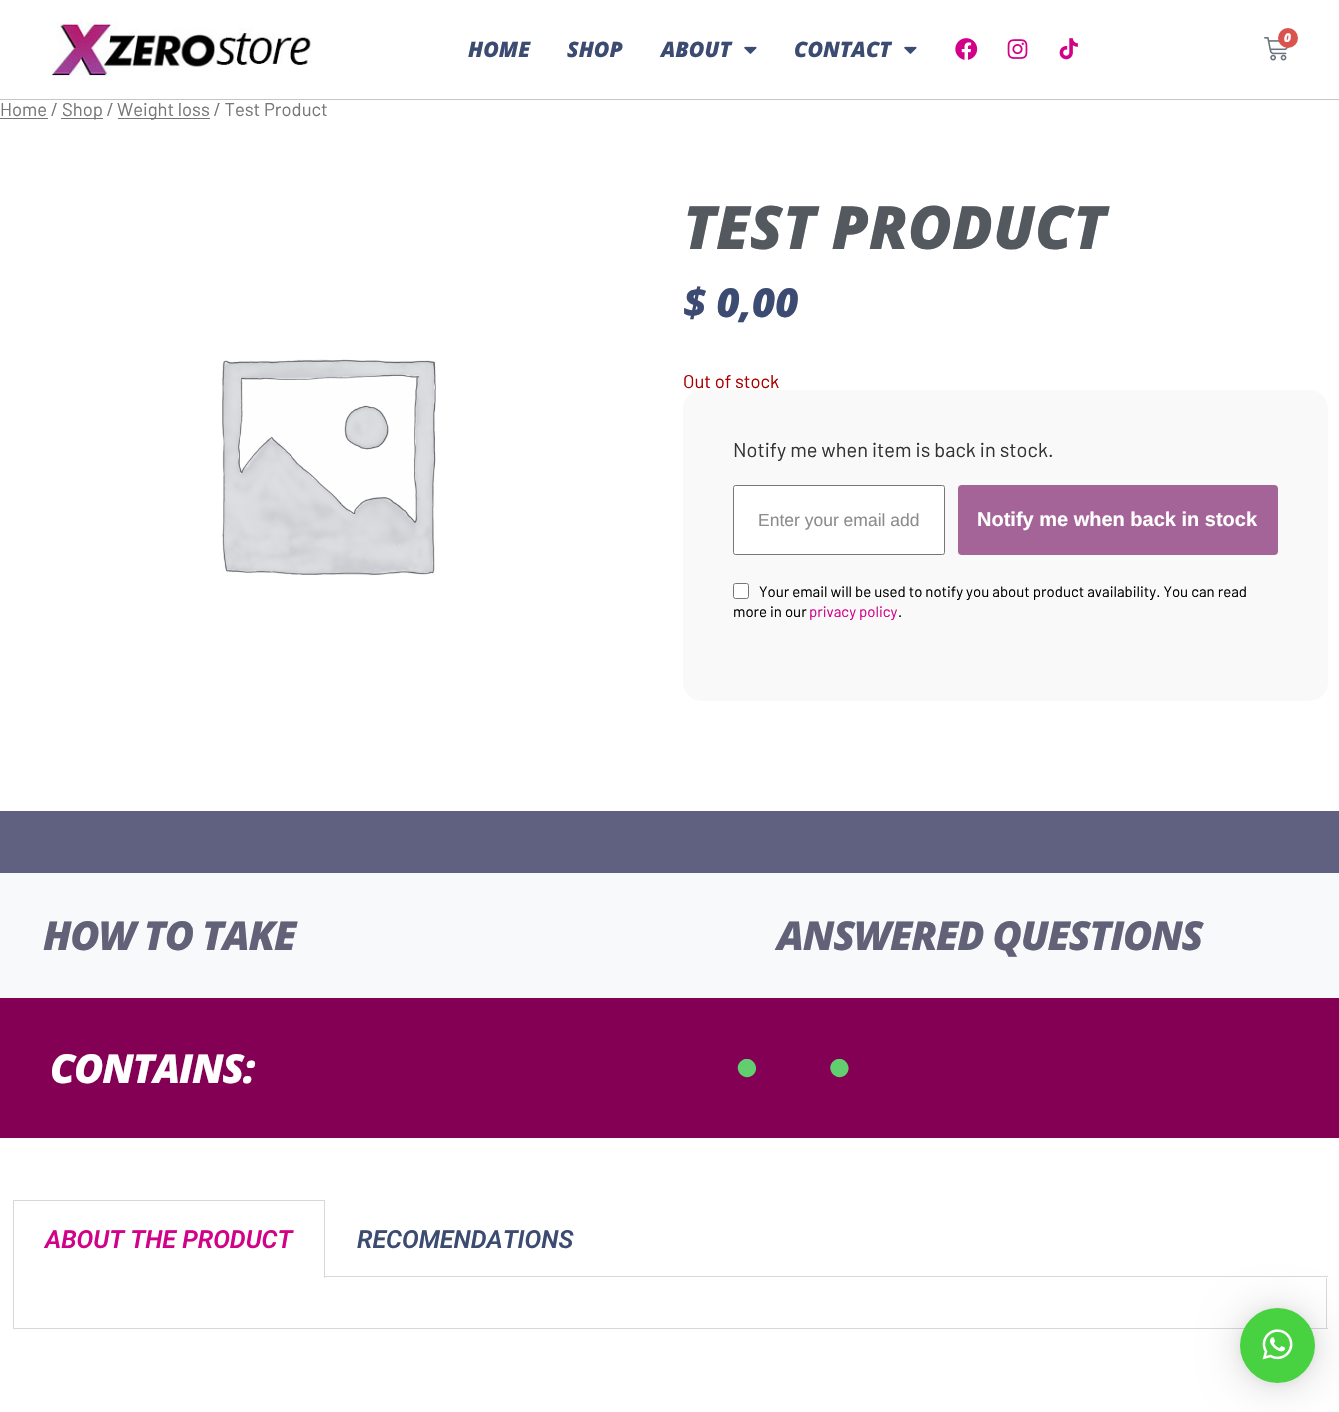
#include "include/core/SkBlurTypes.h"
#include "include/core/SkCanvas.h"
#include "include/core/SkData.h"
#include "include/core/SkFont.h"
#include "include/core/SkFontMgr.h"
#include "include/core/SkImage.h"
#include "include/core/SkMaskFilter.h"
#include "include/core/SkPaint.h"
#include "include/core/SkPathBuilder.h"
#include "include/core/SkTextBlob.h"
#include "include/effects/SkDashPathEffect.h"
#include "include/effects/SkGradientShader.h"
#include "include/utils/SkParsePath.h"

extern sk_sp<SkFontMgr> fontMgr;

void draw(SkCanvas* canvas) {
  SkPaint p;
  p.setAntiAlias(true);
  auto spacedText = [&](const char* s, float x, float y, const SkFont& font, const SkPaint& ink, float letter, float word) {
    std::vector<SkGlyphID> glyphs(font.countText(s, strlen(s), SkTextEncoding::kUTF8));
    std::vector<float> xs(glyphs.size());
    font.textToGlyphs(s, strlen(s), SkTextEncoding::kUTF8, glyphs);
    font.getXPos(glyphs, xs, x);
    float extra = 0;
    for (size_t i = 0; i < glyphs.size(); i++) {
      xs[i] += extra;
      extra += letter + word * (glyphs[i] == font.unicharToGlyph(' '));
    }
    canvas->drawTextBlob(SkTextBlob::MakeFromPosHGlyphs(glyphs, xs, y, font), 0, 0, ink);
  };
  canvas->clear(SK_ColorWHITE);
  p.setColor(SkColorSetRGB(198, 198, 198));
  canvas->drawRect(SkRect::MakeLTRB(0, 99, 1339, 100), p);
  canvas->drawImageRect(SkImages::DeferredFromEncodedData(SkData::MakeFromFileName("images/1.png")), SkRect::MakeLTRB(52, 20, 311, 80), SkSamplingOptions());
  canvas->drawImageRect(SkImages::DeferredFromEncodedData(SkData::MakeFromFileName("images/2.png")), SkRect::MakeLTRB(1264, 37, 1288, 61), SkSamplingOptions());
  p.setColor(SkColorSetRGB(217, 83, 79));
  canvas->drawCircle(1288, 38, 10, p);
  canvas->drawImageRect(SkImages::DeferredFromEncodedData(SkData::MakeFromFileName("images/3.png")), SkRect::MakeLTRB(744, 46, 757, 54), SkSamplingOptions());
  canvas->drawImageRect(SkImages::DeferredFromEncodedData(SkData::MakeFromFileName("images/3.png")), SkRect::MakeLTRB(904, 46, 917, 54), SkSamplingOptions());
  canvas->drawImageRect(SkImages::DeferredFromEncodedData(SkData::MakeFromFileName("images/4.png")), SkRect::MakeLTRB(955, 38, 978, 60), SkSamplingOptions());
  canvas->drawImageRect(SkImages::DeferredFromEncodedData(SkData::MakeFromFileName("images/5.png")), SkRect::MakeLTRB(1007, 39, 1028, 59), SkSamplingOptions());
  canvas->drawImageRect(SkImages::DeferredFromEncodedData(SkData::MakeFromFileName("images/6.png")), SkRect::MakeLTRB(1059, 38, 1078, 60), SkSamplingOptions());
  p.setColor(SkColorSetRGB(118, 118, 118));
  canvas->drawRect(SkRect::MakeLTRB(0, 118, 48, 119), p);
  canvas->drawRect(SkRect::MakeLTRB(61, 118, 103, 119), p);
  canvas->drawRect(SkRect::MakeLTRB(118, 118, 210, 119), p);
  canvas->drawImageRect(SkImages::DeferredFromEncodedData(SkData::MakeFromFileName("images/7.png")), SkRect::MakeLTRB(222, 359, 436, 576), SkSamplingOptions());
  p.setColor(SkColorSetRGB(249, 249, 249));
  canvas->drawRoundRect(SkRect::MakeLTRB(683, 390, 1328, 701), 19, 19, p);
  p.setColor(SK_ColorWHITE);
  canvas->drawRoundRect(SkRect::MakeLTRB(733.5f, 485.5f, 944.5f, 554.5f), 2, 2, p);
  p.setStyle(SkPaint::kStroke_Style);
  p.setStrokeWidth(1);
  p.setColor(SkColorSetRGB(118, 118, 118));
  canvas->drawRoundRect(SkRect::MakeLTRB(733.5f, 485.5f, 944.5f, 554.5f), 2, 2, p);
  p.setStyle(SkPaint::kFill_Style);
  p.setColor(SkColorSetRGB(164, 100, 151));
  canvas->drawRoundRect(SkRect::MakeLTRB(958, 485, 1278, 555), 4, 4, p);
  p.setColor(SK_ColorWHITE);
  canvas->drawRoundRect(SkRect::MakeLTRB(733.5f, 583.5f, 748.5f, 598.5f), 2, 2, p);
  p.setStyle(SkPaint::kStroke_Style);
  p.setColor(SkColorSetRGB(118, 118, 118));
  canvas->drawRoundRect(SkRect::MakeLTRB(733.5f, 583.5f, 748.5f, 598.5f), 2, 2, p);
  p.setStyle(SkPaint::kFill_Style);
  p.setColor(SkColorSetRGB(96, 96, 128));
  canvas->drawRect(SkRect::MakeLTRB(0, 811, 1339, 873), p);
  p.setColor(SkColorSetRGB(247, 249, 251));
  canvas->drawRect(SkRect::MakeLTRB(0, 873, 1339, 998), p);
  p.setColor(SkColorSetRGB(132, 0, 85));
  canvas->drawRect(SkRect::MakeLTRB(0, 998, 1339, 1138), p);
  canvas->save();
  canvas->clipRect(SkRect::MakeLTRB(303, 1059, 1290, 1078));
  p.setColor(SkColorSetRGB(97, 206, 112));
  canvas->drawPath(SkPathBuilder().moveTo(740.5f, 1061.5f).cubicTo(749, 1053, 761.5f, 1066, 753.5f, 1074.5f).cubicTo(745, 1083, 732, 1070, 740.5f, 1061.5f).close().detach(), p);
  canvas->drawPath(SkPathBuilder().moveTo(833, 1061.5f).cubicTo(841.5f, 1053, 854, 1066, 846, 1074.5f).cubicTo(837.5f, 1083, 824.5f, 1070, 833, 1061.5f).close().detach(), p);
  canvas->restore();
  p.setColor(SkColorSetRGB(213, 216, 220));
  canvas->drawRect(SkRect::MakeLTRB(13, 1200, 325, 1201), p);
  canvas->drawRect(SkRect::MakeLTRB(324, 1200, 325, 1278), p);
  canvas->drawRect(SkRect::MakeLTRB(13, 1200, 14, 1278), p);
  canvas->drawRect(SkRect::MakeLTRB(324, 1276, 1328, 1277), p);
  canvas->drawRect(SkRect::MakeLTRB(1326, 1278, 1327, 1329), p);
  canvas->drawRect(SkRect::MakeLTRB(13, 1328, 1328, 1329), p);
  canvas->drawRect(SkRect::MakeLTRB(13, 1278, 14, 1329), p);
  p.setColor(SkColorSetARGB(41, 0, 0, 0));
  p.setMaskFilter(SkMaskFilter::MakeBlur(kNormal_SkBlurStyle, 20));
  canvas->drawRoundRect(SkRect::MakeLTRB(1240, 1310, 1315, 1385), 37.5f, 37.5f, p);
  p.setMaskFilter(nullptr);
  p.setColor(SkColorSetARGB(15, 0, 0, 0));
  p.setMaskFilter(SkMaskFilter::MakeBlur(kNormal_SkBlurStyle, 4));
  canvas->drawRoundRect(SkRect::MakeLTRB(1240, 1309, 1315, 1384), 37.5f, 37.5f, p);
  p.setMaskFilter(nullptr);
  p.setColor(SkColorSetRGB(72, 209, 64));
  canvas->drawCircle(1277.5f, 1345.5f, 37.5f, p);
  canvas->drawImageRect(SkImages::DeferredFromEncodedData(SkData::MakeFromFileName("images/8.png")), SkRect::MakeLTRB(1262, 1329, 1293, 1360), SkSamplingOptions());
  SkFont font1(fontMgr->matchFamilyStyle("Open Sans", SkFontStyle(800, SkFontStyle::kNormal_Width, SkFontStyle::kItalic_Slant)), 12);
  font1.setSubpixel(true);
  p.setColor(SK_ColorWHITE);
  canvas->drawString("0", 1284, 42, font1, p);
  SkFont font2(fontMgr->matchFamilyStyle("Open Sans", SkFontStyle(800, SkFontStyle::kNormal_Width, SkFontStyle::kItalic_Slant)), 21.25f);
  font2.setSubpixel(true);
  p.setColor(SkColorSetRGB(60, 75, 113));
  canvas->drawString("HOME", 468, 57, font2, p);
  canvas->drawString("SHOP", 567, 57, font2, p);
  canvas->drawString("ABOUT", 661, 57, font2, p);
  canvas->drawString("CONTACT", 794, 57, font2, p);
  SkFont font3(fontMgr->matchFamilyStyle("Barlow", SkFontStyle::Normal()), 18.4f);
  font3.setSubpixel(true);
  p.setColor(SkColorSetRGB(118, 118, 118));
  canvas->drawString("Home /", 0, 116, font3, p);
  canvas->drawString("Shop /", 62, 116, font3, p);
  canvas->drawString("Weight loss / Test Product", 117, 116, font3, p);
  SkFont font4(fontMgr->matchFamilyStyle("Open Sans", SkFontStyle(800, SkFontStyle::kNormal_Width, SkFontStyle::kItalic_Slant)), 60);
  font4.setSubpixel(true);
  p.setColor(SkColorSetRGB(84, 89, 95));
  canvas->drawString("TEST PRODUCT", 683, 249, font4, p);
  SkFont font5(fontMgr->matchFamilyStyle("Open Sans", SkFontStyle(800, SkFontStyle::kNormal_Width, SkFontStyle::kItalic_Slant)), 40);
  font5.setSubpixel(true);
  p.setColor(SkColorSetRGB(60, 75, 113));
  canvas->drawString("$ 0,00", 683, 317, font5, p);
  p.setColor(SkColorSetRGB(170, 0, 0));
  canvas->drawString("Out of stock", 683, 388, font3, p);
  SkFont font6(fontMgr->matchFamilyStyle("Barlow", SkFontStyle::Normal()), 20);
  font6.setSubpixel(true);
  p.setColor(SkColorSetRGB(51, 51, 51));
  canvas->drawString("Notify me when item is back in stock.", 733, 457, font6, p);
  SkFont font7(fontMgr->matchFamilyStyle("Liberation Sans", SkFontStyle::Normal()), 17.5f);
  font7.setSubpixel(true);
  p.setColor(SkColorSetRGB(141, 141, 141));
  canvas->drawString("Enter your email add", 758, 526, font7, p);
  SkFont font8(fontMgr->matchFamilyStyle("Liberation Sans", SkFontStyle::Bold()), 20);
  font8.setSubpixel(true);
  p.setColor(SK_ColorWHITE);
  canvas->drawString("Notify me when back in stock", 977, 526, font8, p);
  SkFont font9(fontMgr->matchFamilyStyle("Barlow", SkFontStyle::Normal()), 15);
  font9.setSubpixel(true);
  p.setColor(SK_ColorBLACK);
  canvas->drawString("Your email will be used to notify you about product availability. You can read", 759, 597, font9, p);
  canvas->drawString("more in our", 733, 617, font9, p);
  p.setColor(SkColorSetRGB(210, 2, 136));
  canvas->drawString("privacy policy", 809, 617, font9, p);
  p.setColor(SK_ColorBLACK);
  canvas->drawString(".", 898, 617, font9, p);
  p.setColor(SkColorSetRGB(97, 97, 120));
  spacedText("HOW TO TAKE", 43, 950, font5, p, -1.25f, 0);
  spacedText("ANSWERED QUESTIONS", 777, 950, font5, p, -1.25f, 0);
  p.setColor(SK_ColorWHITE);
  spacedText("CONTAINS:", 50, 1083, font5, p, -1.25f, 0);
  SkFont font10(fontMgr->matchFamilyStyle("Roboto", SkFontStyle(600, SkFontStyle::kNormal_Width, SkFontStyle::kItalic_Slant)), 25);
  font10.setSubpixel(true);
  p.setColor(SkColorSetRGB(210, 2, 136));
  canvas->drawString("ABOUT THE PRODUCT", 45, 1248, font10, p);
  p.setColor(SkColorSetRGB(60, 75, 113));
  canvas->drawString("RECOMENDATIONS", 357, 1248, font10, p);
}
